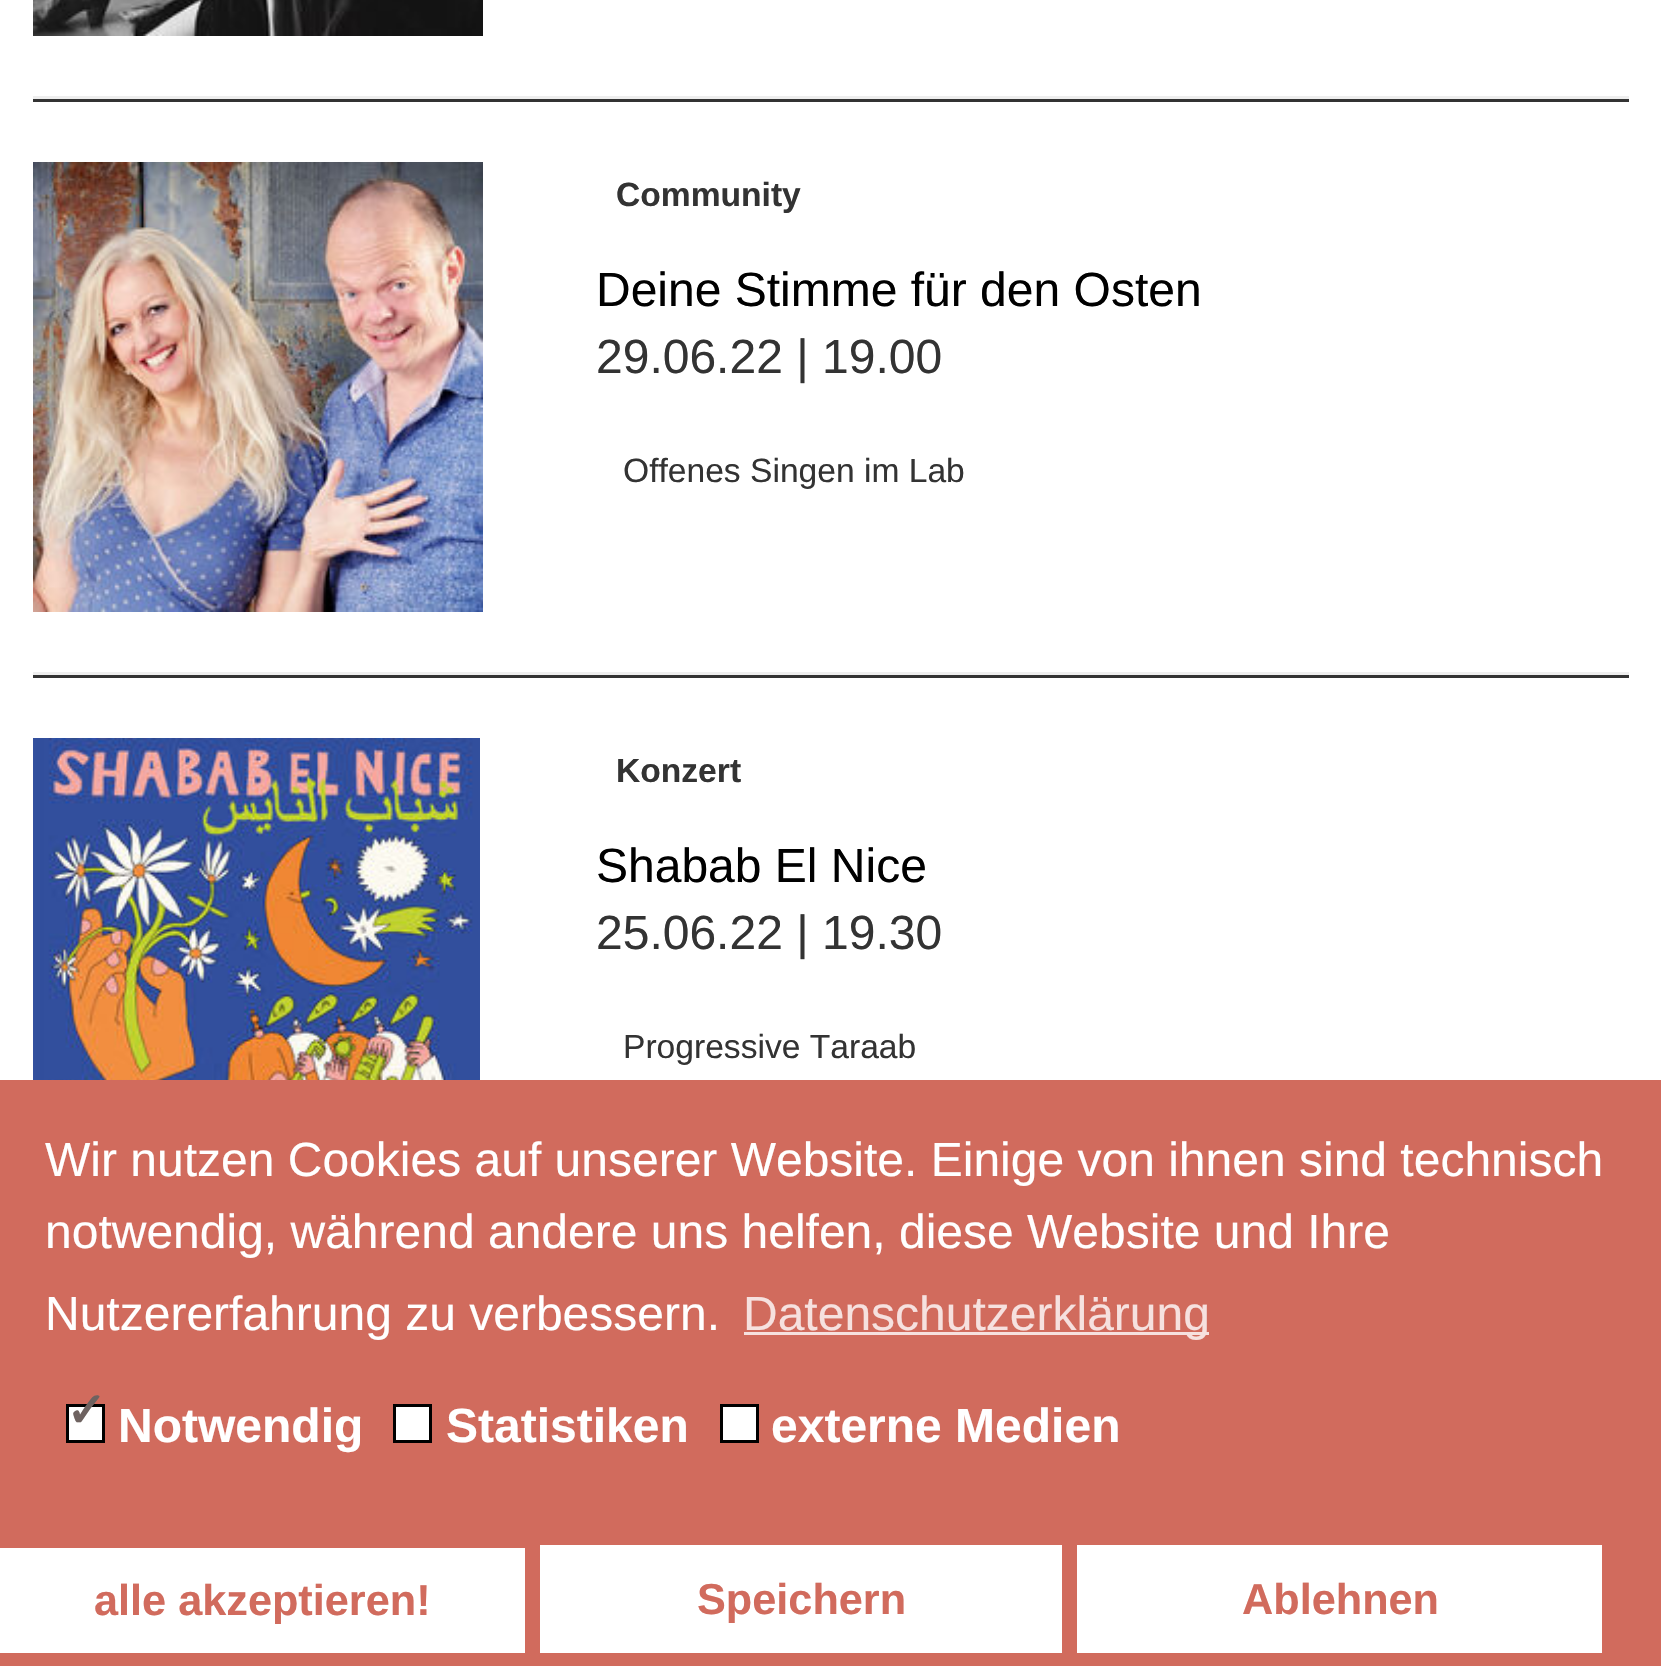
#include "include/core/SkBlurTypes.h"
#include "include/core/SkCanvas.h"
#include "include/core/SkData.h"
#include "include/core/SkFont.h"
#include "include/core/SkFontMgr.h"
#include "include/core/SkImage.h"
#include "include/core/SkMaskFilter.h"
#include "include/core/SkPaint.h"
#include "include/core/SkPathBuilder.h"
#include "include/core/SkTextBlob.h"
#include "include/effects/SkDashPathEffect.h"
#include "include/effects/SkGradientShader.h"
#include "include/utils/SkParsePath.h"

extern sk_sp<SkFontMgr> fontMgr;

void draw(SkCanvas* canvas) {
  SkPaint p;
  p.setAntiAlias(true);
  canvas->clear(SK_ColorWHITE);
  canvas->drawImageRect(SkImages::DeferredFromEncodedData(SkData::MakeFromFileName("images/1.png")), SkRect::MakeLTRB(33, 0, 483, 36), SkSamplingOptions());
  p.setColor(SkColorSetRGB(238, 238, 238));
  canvas->drawRect(SkRect::MakeLTRB(33, 96, 1629, 99), p);
  p.setColor(SkColorSetRGB(51, 51, 51));
  canvas->drawRect(SkRect::MakeLTRB(33, 99, 1629, 102), p);
  canvas->drawImageRect(SkImages::DeferredFromEncodedData(SkData::MakeFromFileName("images/2.png")), SkRect::MakeLTRB(33, 162, 483, 612), SkSamplingOptions());
  p.setColor(SkColorSetRGB(238, 238, 238));
  canvas->drawRect(SkRect::MakeLTRB(33, 672, 1629, 675), p);
  p.setColor(SkColorSetRGB(51, 51, 51));
  canvas->drawRect(SkRect::MakeLTRB(33, 675, 1629, 678), p);
  canvas->drawImageRect(SkImages::DeferredFromEncodedData(SkData::MakeFromFileName("images/3.png")), SkRect::MakeLTRB(33, 738, 480, 1080), SkSamplingOptions());
  p.setColor(SkColorSetRGB(209, 107, 93));
  canvas->drawRect(SkRect::MakeLTRB(0, 1080, 1661, 1666), p);
  p.setColor(SkColorSetRGB(246, 225, 223));
  canvas->drawRect(SkRect::MakeLTRB(744, 1332, 1209, 1335), p);
  p.setColor(SK_ColorWHITE);
  canvas->drawRect(SkRect::MakeLTRB(67.5f, 1405.5f, 103.5f, 1441.5f), p);
  p.setStyle(SkPaint::kStroke_Style);
  p.setStrokeWidth(3);
  p.setColor(SK_ColorBLACK);
  canvas->drawRect(SkRect::MakeLTRB(67.5f, 1405.5f, 103.5f, 1441.5f), p);
  p.setStyle(SkPaint::kFill_Style);
  p.setColor(SK_ColorWHITE);
  canvas->drawRect(SkRect::MakeLTRB(394.5f, 1405.5f, 430.5f, 1441.5f), p);
  p.setStyle(SkPaint::kStroke_Style);
  p.setColor(SK_ColorBLACK);
  canvas->drawRect(SkRect::MakeLTRB(394.5f, 1405.5f, 430.5f, 1441.5f), p);
  p.setStyle(SkPaint::kFill_Style);
  p.setColor(SK_ColorWHITE);
  canvas->drawRect(SkRect::MakeLTRB(721.5f, 1405.5f, 757.5f, 1441.5f), p);
  p.setStyle(SkPaint::kStroke_Style);
  p.setColor(SK_ColorBLACK);
  canvas->drawRect(SkRect::MakeLTRB(721.5f, 1405.5f, 757.5f, 1441.5f), p);
  p.setStyle(SkPaint::kFill_Style);
  p.setColor(SK_ColorWHITE);
  canvas->drawRect(SkRect::MakeLTRB(0, 1548, 525, 1653), p);
  canvas->drawRect(SkRect::MakeLTRB(540, 1545, 1062, 1653), p);
  canvas->drawRect(SkRect::MakeLTRB(1077, 1545, 1602, 1653), p);
  SkFont font1(fontMgr->matchFamilyStyle("Liberation Sans", SkFontStyle::Bold()), 33.6f);
  font1.setSubpixel(true);
  p.setColor(SkColorSetRGB(51, 51, 51));
  canvas->drawString("Community", 616, 206, font1, p);
  SkFont font2(fontMgr->matchFamilyStyle("Liberation Sans", SkFontStyle::Normal()), 48);
  font2.setSubpixel(true);
  p.setColor(SK_ColorBLACK);
  canvas->drawString("Deine Stimme für den Osten", 596, 306, font2, p);
  p.setColor(SkColorSetRGB(51, 51, 51));
  canvas->drawString("29.06.22 | 19.00", 596, 373, font2, p);
  SkFont font3(fontMgr->matchFamilyStyle("Liberation Sans", SkFontStyle::Normal()), 33.6f);
  font3.setSubpixel(true);
  canvas->drawString("Offenes Singen im Lab", 623, 482, font3, p);
  canvas->drawString("Konzert", 616, 782, font1, p);
  p.setColor(SK_ColorBLACK);
  canvas->drawString("Shabab El Nice", 596, 882, font2, p);
  p.setColor(SkColorSetRGB(51, 51, 51));
  canvas->drawString("25.06.22 | 19.30", 596, 949, font2, p);
  canvas->drawString("Progressive Taraab", 623, 1058, font3, p);
  p.setColor(SK_ColorWHITE);
  canvas->drawString("Wir nutzen Cookies auf unserer Website. Einige von ihnen sind technisch", 45, 1176, font2, p);
  canvas->drawString("notwendig, während andere uns helfen, diese Website und Ihre", 45, 1248, font2, p);
  canvas->drawString("Nutzererfahrung zu verbessern.", 45, 1330, font2, p);
  p.setColor(SkColorSetRGB(246, 225, 223));
  canvas->drawString("Datenschutzerklärung", 743, 1330, font2, p);
  SkFont font4(fontMgr->matchFamilyStyle("DejaVu Sans", SkFontStyle::Bold()), 48);
  font4.setSubpixel(true);
  p.setColor(SkColorSetRGB(110, 98, 96));
  canvas->drawString("✓", 66, 1427, font4, p);
  SkFont font5(fontMgr->matchFamilyStyle("Liberation Sans", SkFontStyle::Bold()), 48);
  font5.setSubpixel(true);
  p.setColor(SK_ColorWHITE);
  canvas->drawString("Notwendig", 118, 1442, font5, p);
  canvas->drawString("Statistiken", 446, 1442, font5, p);
  canvas->drawString("externe Medien", 771, 1442, font5, p);
  SkFont font6(fontMgr->matchFamilyStyle("Liberation Sans", SkFontStyle::Bold()), 43.25f);
  font6.setSubpixel(true);
  p.setColor(SkColorSetRGB(209, 107, 93));
  canvas->drawString("alle akzeptieren!", 94, 1615, font6, p);
  canvas->drawString("Speichern", 697, 1614, font6, p);
  canvas->drawString("Ablehnen", 1242, 1614, font6, p);
}
